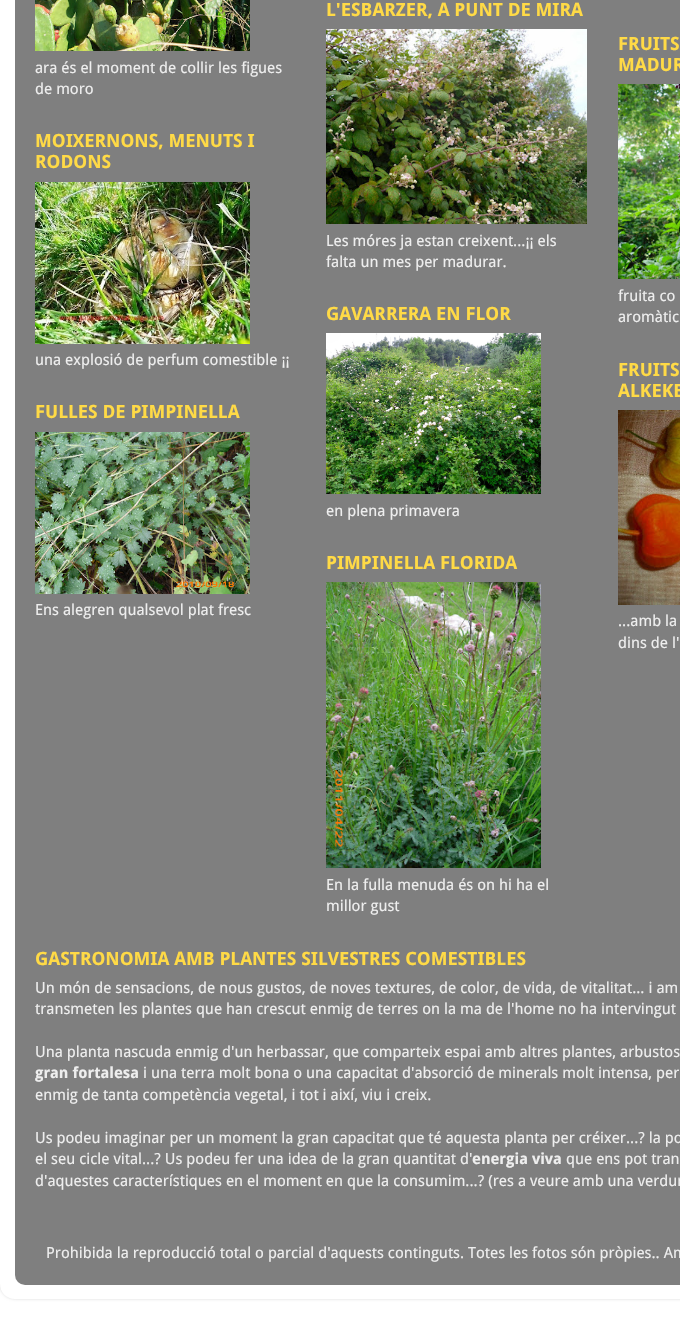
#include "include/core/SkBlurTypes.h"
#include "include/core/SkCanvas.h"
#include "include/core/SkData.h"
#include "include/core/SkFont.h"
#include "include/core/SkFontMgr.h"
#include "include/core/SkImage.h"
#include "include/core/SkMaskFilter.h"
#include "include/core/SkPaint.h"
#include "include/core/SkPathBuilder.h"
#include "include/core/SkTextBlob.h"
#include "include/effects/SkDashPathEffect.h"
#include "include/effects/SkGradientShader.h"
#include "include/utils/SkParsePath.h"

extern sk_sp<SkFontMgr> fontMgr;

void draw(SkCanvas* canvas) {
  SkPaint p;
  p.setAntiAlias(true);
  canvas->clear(SK_ColorWHITE);
  canvas->save();
  canvas->clipPath(SkPathBuilder(SkPathFillType::kEvenOdd).moveTo(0, 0).lineTo(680, 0).lineTo(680, 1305).lineTo(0, 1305).close().moveTo(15, -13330).lineTo(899, -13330).cubicTo(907.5f, -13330, 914, -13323.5f, 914, -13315).lineTo(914, 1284).cubicTo(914, 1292.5f, 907.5f, 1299, 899, 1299).lineTo(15, 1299).cubicTo(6.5f, 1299, 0, 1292.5f, 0, 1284).lineTo(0, -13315).cubicTo(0, -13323.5f, 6.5f, -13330, 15, -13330).close().detach(), true);
  p.setColor(SkColorSetARGB(38, 0, 0, 0));
  p.setMaskFilter(SkMaskFilter::MakeBlur(kNormal_SkBlurStyle, 1.5f));
  canvas->drawRoundRect(SkRect::MakeLTRB(0, -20, 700, 1299), 15, 15, p);
  p.setMaskFilter(nullptr);
  canvas->restore();
  canvas->drawImageRect(SkImages::DeferredFromEncodedData(SkData::MakeFromFileName("images/1.png")), SkRect::MakeLTRB(15, 0, 680, 1285), SkSamplingOptions());
  canvas->drawImageRect(SkImages::DeferredFromEncodedData(SkData::MakeFromFileName("images/2.png")), SkRect::MakeLTRB(35, 0, 250, 51), SkSamplingOptions());
  canvas->drawImageRect(SkImages::DeferredFromEncodedData(SkData::MakeFromFileName("images/3.png")), SkRect::MakeLTRB(35, 182, 250, 344), SkSamplingOptions());
  canvas->drawImageRect(SkImages::DeferredFromEncodedData(SkData::MakeFromFileName("images/4.png")), SkRect::MakeLTRB(35, 432, 250, 594), SkSamplingOptions());
  canvas->drawImageRect(SkImages::DeferredFromEncodedData(SkData::MakeFromFileName("images/5.png")), SkRect::MakeLTRB(326, 29, 587, 224), SkSamplingOptions());
  canvas->drawImageRect(SkImages::DeferredFromEncodedData(SkData::MakeFromFileName("images/6.png")), SkRect::MakeLTRB(326, 333, 541, 494), SkSamplingOptions());
  canvas->drawImageRect(SkImages::DeferredFromEncodedData(SkData::MakeFromFileName("images/7.png")), SkRect::MakeLTRB(326, 582, 541, 868), SkSamplingOptions());
  canvas->drawImageRect(SkImages::DeferredFromEncodedData(SkData::MakeFromFileName("images/8.png")), SkRect::MakeLTRB(618, 84, 680, 279), SkSamplingOptions());
  canvas->drawImageRect(SkImages::DeferredFromEncodedData(SkData::MakeFromFileName("images/9.png")), SkRect::MakeLTRB(618, 410, 680, 605), SkSamplingOptions());
  SkFont font1(fontMgr->matchFamilyStyle("Droid Sans", SkFontStyle::Normal()), 15.3f);
  font1.setSubpixel(true);
  p.setColor(SkColorSetRGB(238, 238, 238));
  canvas->drawString("ara és el moment de collir les figues", 35, 73, font1, p);
  canvas->drawString("de moro", 35, 94, font1, p);
  SkFont font2(fontMgr->matchFamilyStyle("Droid Sans", SkFontStyle::Bold()), 18.35f);
  font2.setSubpixel(true);
  p.setColor(SkColorSetRGB(255, 218, 70));
  canvas->drawString("MOIXERNONS, MENUTS I", 35, 147, font2, p);
  canvas->drawString("RODONS", 35, 168, font2, p);
  p.setColor(SkColorSetRGB(238, 238, 238));
  canvas->drawString("una explosió de perfum comestible ¡¡", 35, 365, font1, p);
  p.setColor(SkColorSetRGB(255, 218, 70));
  canvas->drawString("FULLES DE PIMPINELLA", 35, 418, font2, p);
  p.setColor(SkColorSetRGB(238, 238, 238));
  canvas->drawString("Ens alegren qualsevol plat fresc", 35, 615, font1, p);
  p.setColor(SkColorSetRGB(255, 218, 70));
  canvas->drawString("L'ESBARZER, A PUNT DE MIRA", 326, 16, font2, p);
  p.setColor(SkColorSetRGB(238, 238, 238));
  canvas->drawString("Les móres ja estan creixent...¡¡ els", 326, 246, font1, p);
  canvas->drawString("falta un mes per madurar.", 326, 267, font1, p);
  p.setColor(SkColorSetRGB(255, 218, 70));
  canvas->drawString("GAVARRERA EN FLOR", 326, 320, font2, p);
  p.setColor(SkColorSetRGB(238, 238, 238));
  canvas->drawString("en plena primavera", 326, 516, font1, p);
  p.setColor(SkColorSetRGB(255, 218, 70));
  canvas->drawString("PIMPINELLA FLORIDA", 326, 569, font2, p);
  p.setColor(SkColorSetRGB(238, 238, 238));
  canvas->drawString("En la fulla menuda és on hi ha el", 326, 890, font1, p);
  canvas->drawString("millor gust", 326, 911, font1, p);
  p.setColor(SkColorSetRGB(255, 218, 70));
  canvas->drawString("FRUITS", 618, 50, font2, p);
  canvas->drawString("MADUR", 618, 71, font2, p);
  p.setColor(SkColorSetRGB(238, 238, 238));
  canvas->drawString("fruita co", 618, 301, font1, p);
  canvas->drawString("aromàtic", 618, 322, font1, p);
  p.setColor(SkColorSetRGB(255, 218, 70));
  canvas->drawString("FRUITS", 618, 376, font2, p);
  canvas->drawString("ALKEKE", 618, 397, font2, p);
  p.setColor(SkColorSetRGB(238, 238, 238));
  canvas->drawString("...amb la", 618, 626, font1, p);
  canvas->drawString("dins de l'", 618, 648, font1, p);
  p.setColor(SkColorSetRGB(255, 218, 70));
  canvas->drawString("GASTRONOMIA AMB PLANTES SILVESTRES COMESTIBLES", 35, 965, font2, p);
  p.setColor(SkColorSetRGB(238, 238, 238));
  canvas->drawString("Un món de sensacions, de nous gustos, de noves textures, de color, de vida, de vitalitat... i am", 35, 993, font1, p);
  canvas->drawString("transmeten les plantes que han crescut enmig de terres on la ma de l'home no ha intervingut", 35, 1014, font1, p);
  canvas->drawString("Una planta nascuda enmig d'un herbassar, que comparteix espai amb altres plantes, arbustos", 35, 1057, font1, p);
  SkFont font3(fontMgr->matchFamilyStyle("Droid Sans", SkFontStyle::Bold()), 15.3f);
  font3.setSubpixel(true);
  canvas->drawString("gran fortalesa", 35, 1078, font3, p);
  canvas->drawString("i una terra molt bona o una capacitat d'absorció de minerals molt intensa, per", 143, 1078, font1, p);
  canvas->drawString("enmig de tanta competència vegetal, i tot i així, viu i creix.", 35, 1100, font1, p);
  canvas->drawString("Us podeu imaginar per un moment la gran capacitat que té aquesta planta per créixer...? la po", 35, 1143, font1, p);
  canvas->drawString("el seu cicle vital...? Us podeu fer una idea de la gran quantitat d'", 35, 1164, font1, p);
  canvas->drawString("energia viva", 472, 1164, font3, p);
  canvas->drawString("que ens pot tran", 566, 1164, font1, p);
  canvas->drawString("d'aquestes característiques en el moment en que la consumim...? (res a veure amb una verdur", 35, 1186, font1, p);
  canvas->drawString("Prohibida la reproducció total o parcial d'aquests continguts. Totes les fotos són pròpies.. Am", 46, 1258, font1, p);
}
